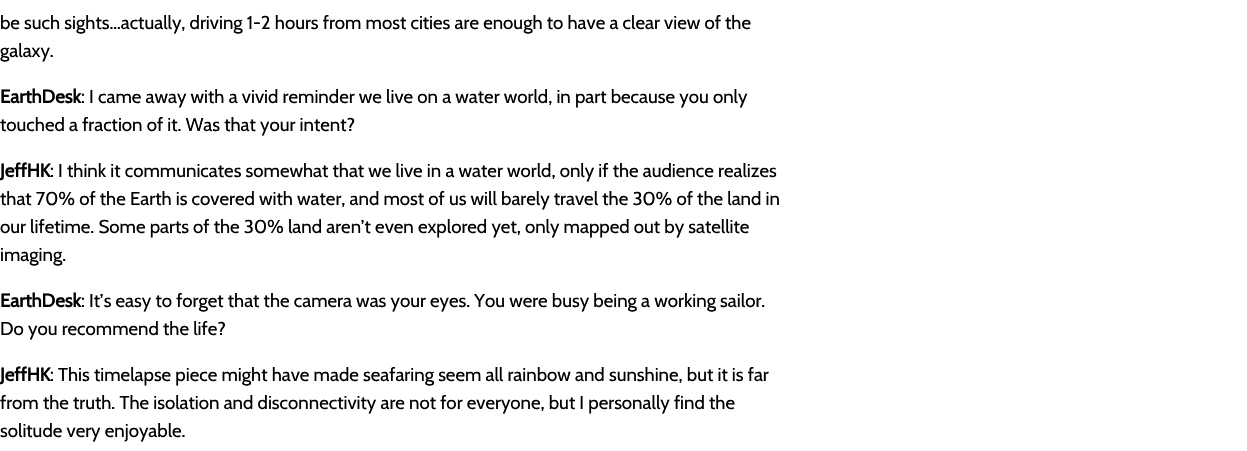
#include "include/core/SkBlurTypes.h"
#include "include/core/SkCanvas.h"
#include "include/core/SkData.h"
#include "include/core/SkFont.h"
#include "include/core/SkFontMgr.h"
#include "include/core/SkImage.h"
#include "include/core/SkMaskFilter.h"
#include "include/core/SkPaint.h"
#include "include/core/SkPathBuilder.h"
#include "include/core/SkTextBlob.h"
#include "include/effects/SkDashPathEffect.h"
#include "include/effects/SkGradientShader.h"
#include "include/utils/SkParsePath.h"

extern sk_sp<SkFontMgr> fontMgr;

void draw(SkCanvas* canvas) {
  SkPaint p;
  p.setAntiAlias(true);
  canvas->clear(SK_ColorWHITE);
  SkFont font1(fontMgr->matchFamilyStyle("Cabin", SkFontStyle::Normal()), 18.65f);
  font1.setSubpixel(true);
  p.setColor(SK_ColorBLACK);
  canvas->drawString("be such sights…actually, driving 1-2 hours from most cities are enough to have a clear view of the", 0, 29, font1, p);
  canvas->drawString("galaxy.", 0, 57, font1, p);
  SkFont font2(fontMgr->matchFamilyStyle("Cabin", SkFontStyle::Bold()), 18.65f);
  font2.setSubpixel(true);
  canvas->drawString("EarthDesk", 0, 103, font2, p);
  canvas->drawString(": I came away with a vivid reminder we live on a water world, in part because you only", 81, 103, font1, p);
  canvas->drawString("touched a fraction of it. Was that your intent?", 0, 131, font1, p);
  canvas->drawString("JeffHK", 0, 177, font2, p);
  canvas->drawString(": I think it communicates somewhat that we live in a water world, only if the audience realizes", 50, 177, font1, p);
  canvas->drawString("that 70% of the Earth is covered with water, and most of us will barely travel the 30% of the land in", 0, 205, font1, p);
  canvas->drawString("our lifetime. Some parts of the 30% land aren’t even explored yet, only mapped out by satellite", 0, 233, font1, p);
  canvas->drawString("imaging.", 0, 261, font1, p);
  canvas->drawString("EarthDesk", 0, 307, font2, p);
  canvas->drawString(": It’s easy to forget that the camera was your eyes. You were busy being a working sailor.", 81, 307, font1, p);
  canvas->drawString("Do you recommend the life?", 0, 335, font1, p);
  canvas->drawString("JeffHK", 0, 381, font2, p);
  canvas->drawString(": This timelapse piece might have made seafaring seem all rainbow and sunshine, but it is far", 50, 381, font1, p);
  canvas->drawString("from the truth. The isolation and disconnectivity are not for everyone, but I personally find the", 0, 409, font1, p);
  canvas->drawString("solitude very enjoyable.", 0, 437, font1, p);
}
